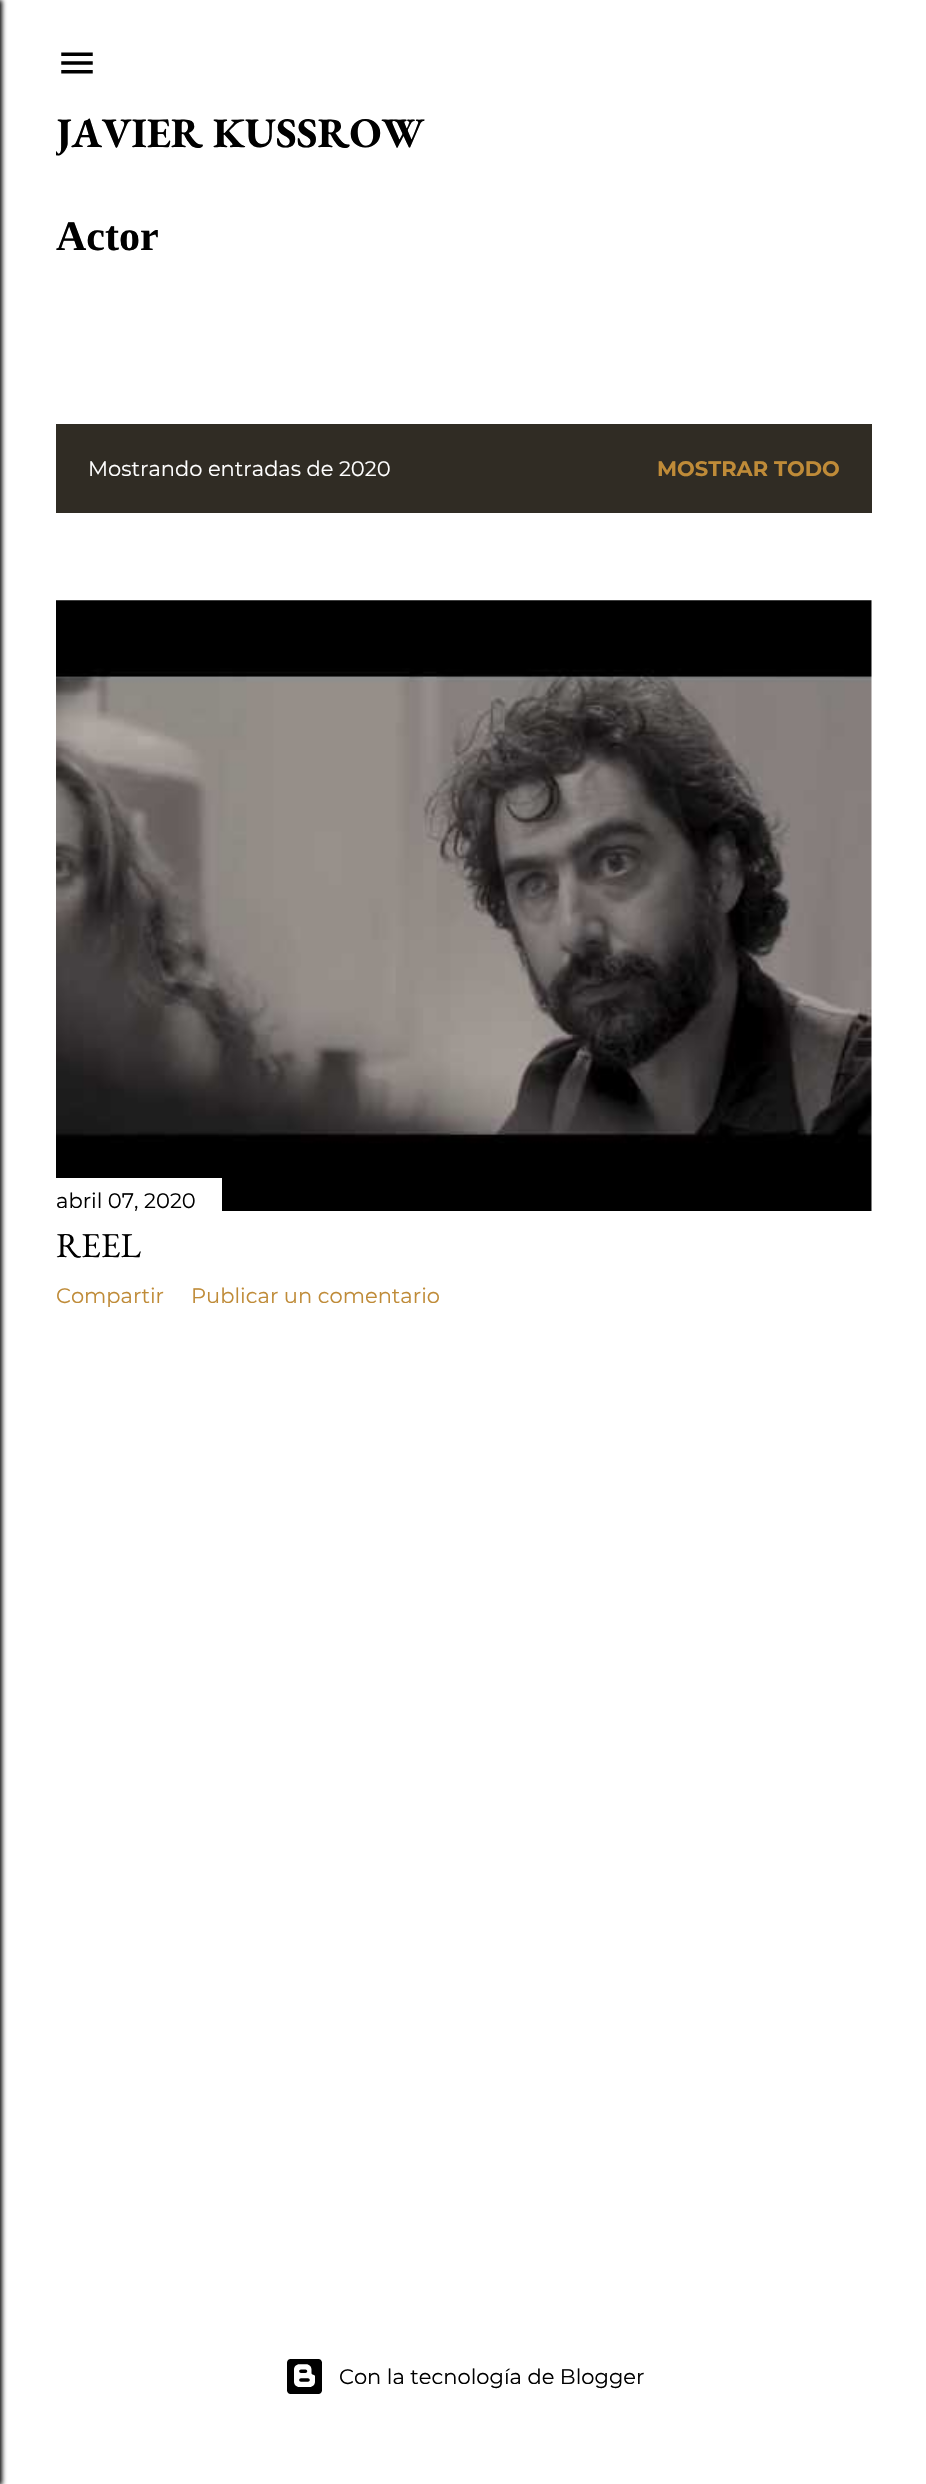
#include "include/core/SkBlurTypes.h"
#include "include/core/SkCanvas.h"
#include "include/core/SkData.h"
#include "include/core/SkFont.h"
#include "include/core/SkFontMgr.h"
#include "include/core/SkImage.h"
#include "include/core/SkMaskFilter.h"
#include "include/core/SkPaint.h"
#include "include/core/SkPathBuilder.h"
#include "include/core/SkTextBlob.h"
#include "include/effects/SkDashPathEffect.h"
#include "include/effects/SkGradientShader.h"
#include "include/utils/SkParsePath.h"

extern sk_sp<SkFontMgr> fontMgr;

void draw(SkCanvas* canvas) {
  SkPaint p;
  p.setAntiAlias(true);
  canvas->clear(SK_ColorWHITE);
  p.setColor(SK_ColorBLACK);
  p.setMaskFilter(SkMaskFilter::MakeBlur(kNormal_SkBlurStyle, 2.5f));
  canvas->drawRect(SkRect::MakeLTRB(-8, 0, 2, 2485), p);
  p.setMaskFilter(nullptr);
  canvas->drawImageRect(SkImages::DeferredFromEncodedData(SkData::MakeFromFileName("images/1.png")), SkRect::MakeLTRB(61, 52, 93, 74), SkSamplingOptions());
  p.setColor(SkColorSetRGB(48, 44, 36));
  canvas->drawRect(SkRect::MakeLTRB(56, 424, 872, 513), p);
  canvas->drawImageRect(SkImages::DeferredFromEncodedData(SkData::MakeFromFileName("images/2.png")), SkRect::MakeLTRB(56, 600, 872, 1211), SkSamplingOptions());
  p.setColor(SK_ColorWHITE);
  canvas->drawRect(SkRect::MakeLTRB(56, 1178, 222, 1211), p);
  canvas->drawImageRect(SkImages::DeferredFromEncodedData(SkData::MakeFromFileName("images/3.png")), SkRect::MakeLTRB(287, 2359, 322, 2394), SkSamplingOptions());
  canvas->save();
  canvas->clipRect(SkRect::MakeLTRB(56, 105, 872, 315));
  SkFont font1(fontMgr->matchFamilyStyle("EB Garamond", SkFontStyle::Bold()), 42);
  font1.setSubpixel(true);
  p.setColor(SK_ColorBLACK);
  canvas->drawString("JAVIER KUSSROW", 56, 147, font1, p);
  canvas->restore();
  SkFont font2(fontMgr->matchFamilyStyle("Liberation Serif", SkFontStyle::Bold()), 42);
  font2.setSubpixel(true);
  canvas->drawString("Actor", 56, 250, font2, p);
  SkFont font3(fontMgr->matchFamilyStyle("Montserrat", SkFontStyle::Normal()), 21);
  font3.setSubpixel(true);
  p.setColor(SK_ColorWHITE);
  canvas->drawString("Mostrando entradas de 2020", 88, 476, font3, p);
  SkFont font4(fontMgr->matchFamilyStyle("Montserrat", SkFontStyle::Bold()), 21);
  font4.setSubpixel(true);
  p.setColor(SkColorSetRGB(191, 139, 56));
  canvas->drawString("MOSTRAR TODO", 657, 476, font4, p);
  p.setColor(SK_ColorBLACK);
  canvas->drawString("abril 07, 2020", 56, 1208, font3, p);
  SkFont font5(fontMgr->matchFamilyStyle("EB Garamond", SkFontStyle::Normal()), 35);
  font5.setSubpixel(true);
  canvas->drawString("REEL", 56, 1257, font5, p);
  p.setColor(SkColorSetRGB(191, 139, 56));
  canvas->drawString("Compartir", 56, 1303, font3, p);
  canvas->drawString("Publicar un comentario", 191, 1303, font3, p);
  p.setColor(SK_ColorBLACK);
  canvas->drawString("Con la tecnología de Blogger", 339, 2384, font3, p);
}
